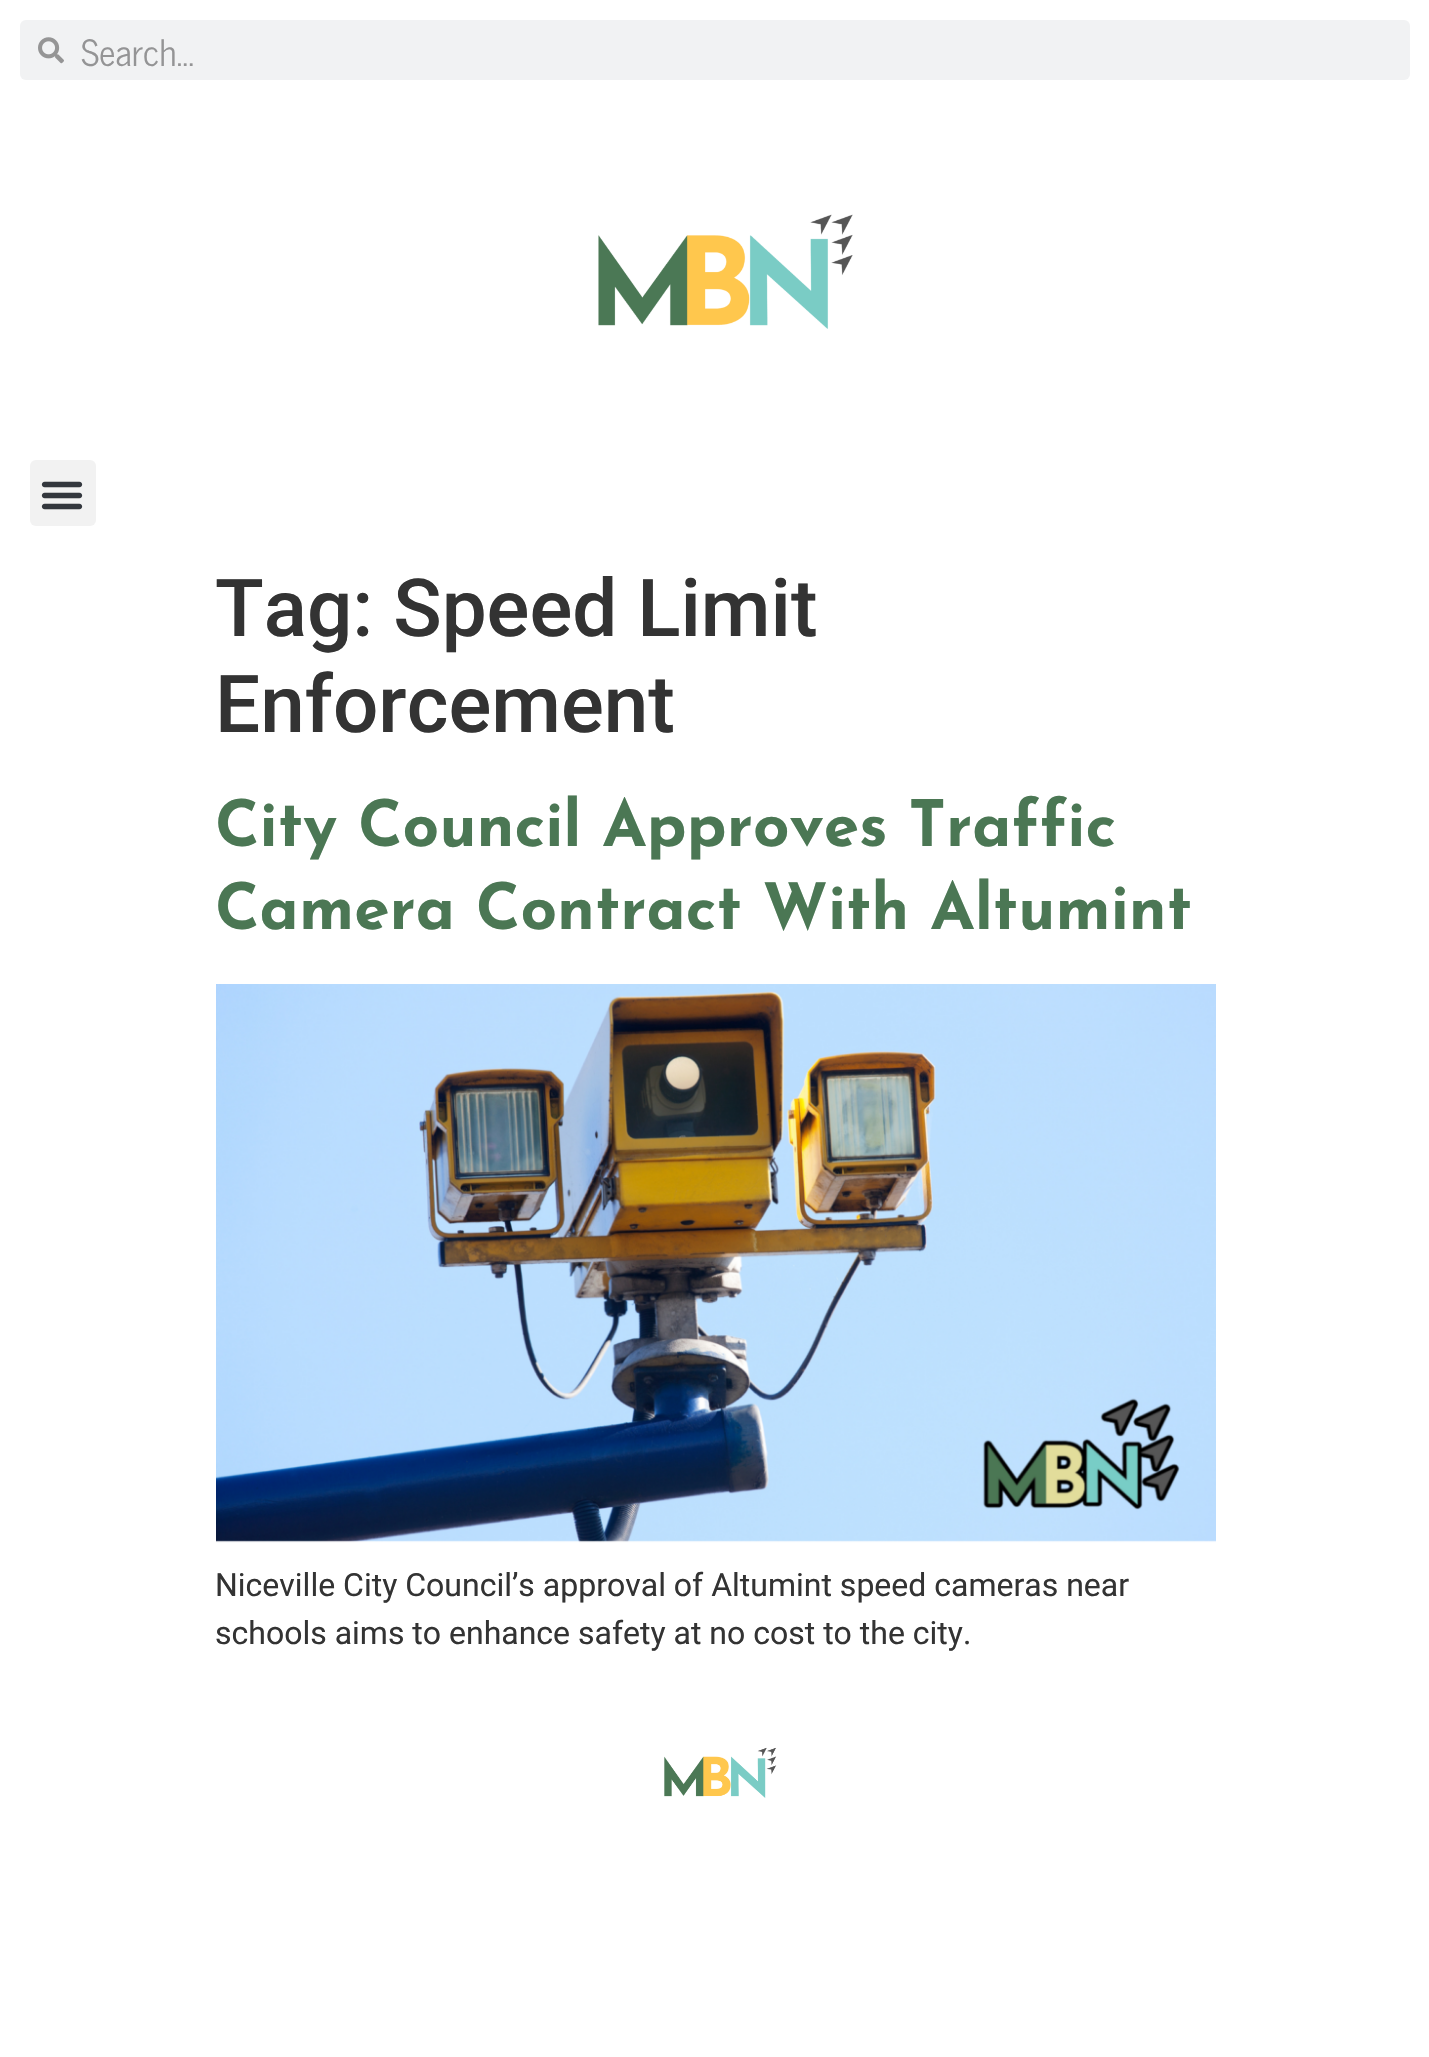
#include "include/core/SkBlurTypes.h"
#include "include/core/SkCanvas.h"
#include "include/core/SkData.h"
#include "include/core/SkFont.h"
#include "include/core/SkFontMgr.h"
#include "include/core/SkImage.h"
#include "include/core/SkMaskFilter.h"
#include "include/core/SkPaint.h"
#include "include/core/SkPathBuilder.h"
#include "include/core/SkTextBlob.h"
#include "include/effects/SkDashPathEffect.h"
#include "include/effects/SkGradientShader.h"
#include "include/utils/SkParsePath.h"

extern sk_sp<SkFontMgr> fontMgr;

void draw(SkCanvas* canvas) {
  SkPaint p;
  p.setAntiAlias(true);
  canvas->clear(SK_ColorWHITE);
  p.setColor(SkColorSetRGB(241, 242, 243));
  canvas->drawRoundRect(SkRect::MakeLTRB(20, 20, 1410, 80), 6, 6, p);
  canvas->drawImageRect(SkImages::DeferredFromEncodedData(SkData::MakeFromFileName("images/1.png")), SkRect::MakeLTRB(38, 37, 64, 64), SkSamplingOptions());
  canvas->drawImageRect(SkImages::DeferredFromEncodedData(SkData::MakeFromFileName("images/2.png")), SkRect::MakeLTRB(598, 214, 853, 329), SkSamplingOptions());
  p.setColor(SkColorSetRGB(242, 242, 242));
  canvas->drawRoundRect(SkRect::MakeLTRB(30, 460, 96, 526), 6, 6, p);
  canvas->drawImageRect(SkImages::DeferredFromEncodedData(SkData::MakeFromFileName("images/3.png")), SkRect::MakeLTRB(41, 481, 83, 510), SkSamplingOptions());
  canvas->drawImageRect(SkImages::DeferredFromEncodedData(SkData::MakeFromFileName("images/4.png")), SkRect::MakeLTRB(216, 984, 1216, 1543), SkSamplingOptions());
  canvas->drawImageRect(SkImages::DeferredFromEncodedData(SkData::MakeFromFileName("images/5.png")), SkRect::MakeLTRB(664, 1747, 777, 1798), SkSamplingOptions());
  SkFont font1(fontMgr->matchFamilyStyle("News Cycle", SkFontStyle::Normal()), 36);
  font1.setSubpixel(true);
  p.setColor(SkColorSetRGB(148, 148, 149));
  canvas->drawString("Search...", 81, 66, font1, p);
  SkFont font2(fontMgr->matchFamilyStyle("Roboto", SkFontStyle(500, SkFontStyle::kNormal_Width, SkFontStyle::kUpright_Slant)), 80);
  font2.setSubpixel(true);
  p.setColor(SkColorSetRGB(51, 51, 51));
  canvas->drawString("Tag: Speed Limit", 215, 636, font2, p);
  canvas->drawString("Enforcement", 215, 732, font2, p);
  SkFont font3(fontMgr->matchFamilyStyle("Josefin Sans", SkFontStyle::Bold()), 64);
  font3.setSubpixel(true);
  p.setColor(SkColorSetRGB(75, 119, 84));
  canvas->drawString("City Council Approves Traffic", 215, 846, font3, p);
  canvas->drawString("Camera Contract With Altumint", 215, 929, font3, p);
  SkFont font4(fontMgr->matchFamilyStyle("Roboto", SkFontStyle::Normal()), 32);
  font4.setSubpixel(true);
  p.setColor(SkColorSetRGB(51, 51, 51));
  canvas->drawString("Niceville City Council’s approval of Altumint speed cameras near", 215, 1596, font4, p);
  canvas->drawString("schools aims to enhance safety at no cost to the city.", 215, 1644, font4, p);
}
